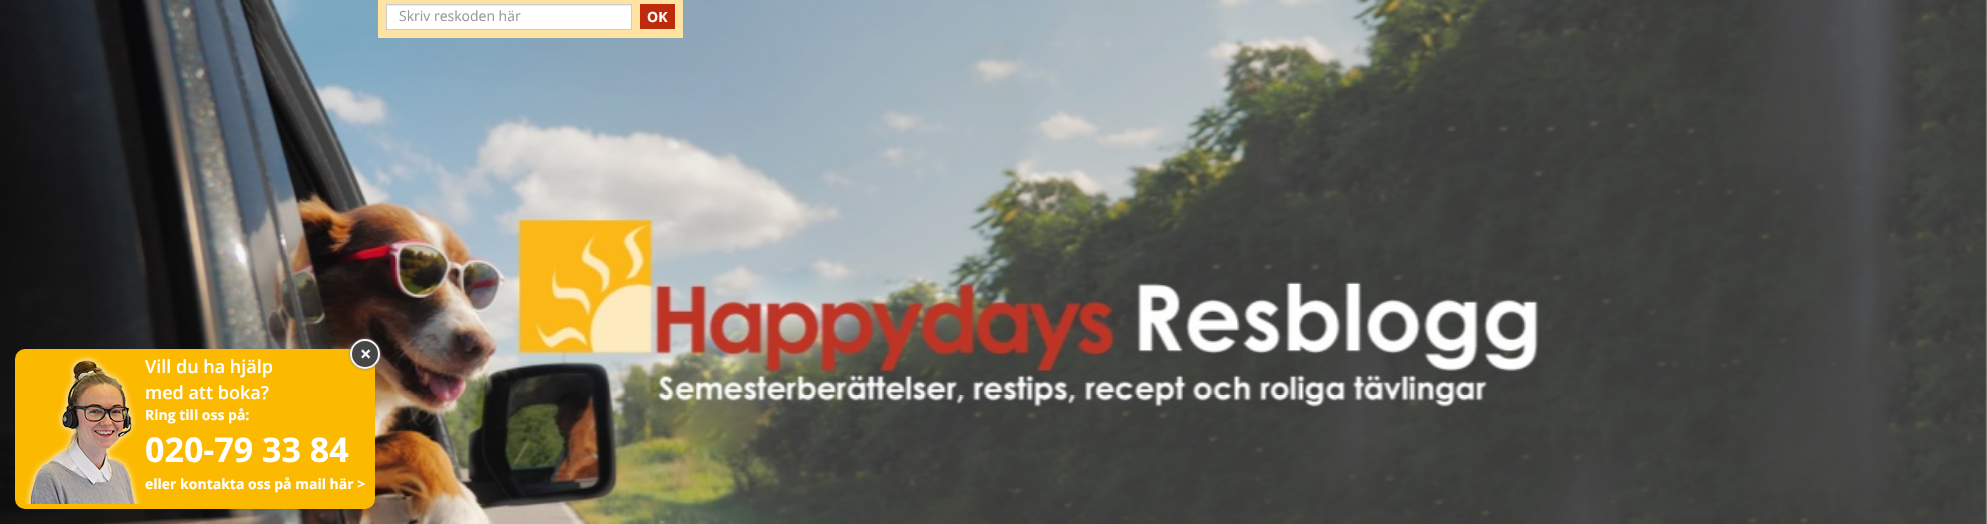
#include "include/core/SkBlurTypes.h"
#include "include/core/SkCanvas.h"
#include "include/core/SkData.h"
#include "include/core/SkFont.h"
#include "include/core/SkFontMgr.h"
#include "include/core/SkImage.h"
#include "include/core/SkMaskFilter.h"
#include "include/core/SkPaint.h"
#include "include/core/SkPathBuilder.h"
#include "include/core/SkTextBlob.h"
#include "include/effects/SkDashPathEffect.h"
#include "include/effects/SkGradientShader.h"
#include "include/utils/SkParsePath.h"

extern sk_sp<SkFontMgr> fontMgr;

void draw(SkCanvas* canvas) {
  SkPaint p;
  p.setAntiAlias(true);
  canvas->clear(SK_ColorWHITE);
  canvas->drawImageRect(SkImages::DeferredFromEncodedData(SkData::MakeFromFileName("images/1.png")), SkRect::MakeLTRB(0, 0, 1987, 524), SkSamplingOptions());
  p.setColor(SkColorSetRGB(255, 227, 162));
  canvas->drawRect(SkRect::MakeLTRB(378, 0, 683, 38), p);
  p.setColor(SK_ColorWHITE);
  canvas->drawRect(SkRect::MakeLTRB(387, 6, 631, 29), p);
  p.setColor(SkColorSetRGB(236, 236, 236));
  canvas->drawRect(SkRect::MakeLTRB(387, 5, 631, 6), p);
  p.setStyle(SkPaint::kStroke_Style);
  p.setStrokeWidth(1);
  p.setColor(SkColorSetRGB(204, 204, 204));
  canvas->drawRect(SkRect::MakeLTRB(386.5f, 4.5f, 631.5f, 29.5f), p);
  p.setStyle(SkPaint::kFill_Style);
  p.setColor(SkColorSetRGB(189, 43, 11));
  canvas->drawRect(SkRect::MakeLTRB(640, 4, 675, 29), p);
  p.setColor(SkColorSetRGB(251, 186, 0));
  canvas->drawRoundRect(SkRect::MakeLTRB(15, 349, 375, 509), 10, 10, p);
  p.setColor(SkColorSetRGB(128, 128, 128));
  p.setMaskFilter(SkMaskFilter::MakeBlur(kNormal_SkBlurStyle, 1.5f));
  canvas->drawRoundRect(SkRect::MakeLTRB(350, 339, 380, 369), 15, 15, p);
  p.setMaskFilter(nullptr);
  p.setColor(SkColorSetRGB(70, 70, 70));
  canvas->drawCircle(365, 354, 14, p);
  p.setStyle(SkPaint::kStroke_Style);
  p.setStrokeWidth(2);
  p.setColor(SkColorSetRGB(245, 245, 245));
  canvas->drawCircle(365, 354, 14, p);
  canvas->drawImageRect(SkImages::DeferredFromEncodedData(SkData::MakeFromFileName("images/2.png")), SkRect::MakeLTRB(25, 354, 142, 504), SkSamplingOptions());
  SkFont font1(fontMgr->matchFamilyStyle("Open Sans", SkFontStyle::Normal()), 14);
  font1.setSubpixel(true);
  p.setStyle(SkPaint::kFill_Style);
  p.setColor(SkColorSetRGB(153, 153, 153));
  canvas->drawString("Skriv reskoden här", 399, 21, font1, p);
  SkFont font2(fontMgr->matchFamilyStyle("Open Sans", SkFontStyle::Bold()), 14);
  font2.setSubpixel(true);
  p.setColor(SK_ColorWHITE);
  canvas->drawString("OK", 647, 22, font2, p);
  SkFont font3(fontMgr->matchFamilyStyle("Open Sans", SkFontStyle::Bold()), 20);
  font3.setSubpixel(true);
  p.setColor(SkColorSetRGB(245, 245, 245));
  canvas->drawString("×", 360, 361, font3, p);
  SkFont font4(fontMgr->matchFamilyStyle("Open Sans", SkFontStyle(600, SkFontStyle::kNormal_Width, SkFontStyle::kUpright_Slant)), 18);
  font4.setSubpixel(true);
  p.setColor(SK_ColorWHITE);
  canvas->drawString("Vill du ha hjälp", 145, 373, font4, p);
  canvas->drawString("med att boka?", 145, 399, font4, p);
  canvas->drawString("Ring till oss på:", 145, 420, font2, p);
  SkFont font5(fontMgr->matchFamilyStyle("Open Sans", SkFontStyle::Bold()), 34);
  font5.setSubpixel(true);
  canvas->drawString("020-79 33 84", 145, 462, font5, p);
  canvas->drawString("eller kontakta oss på mail här >", 145, 489, font2, p);
}
